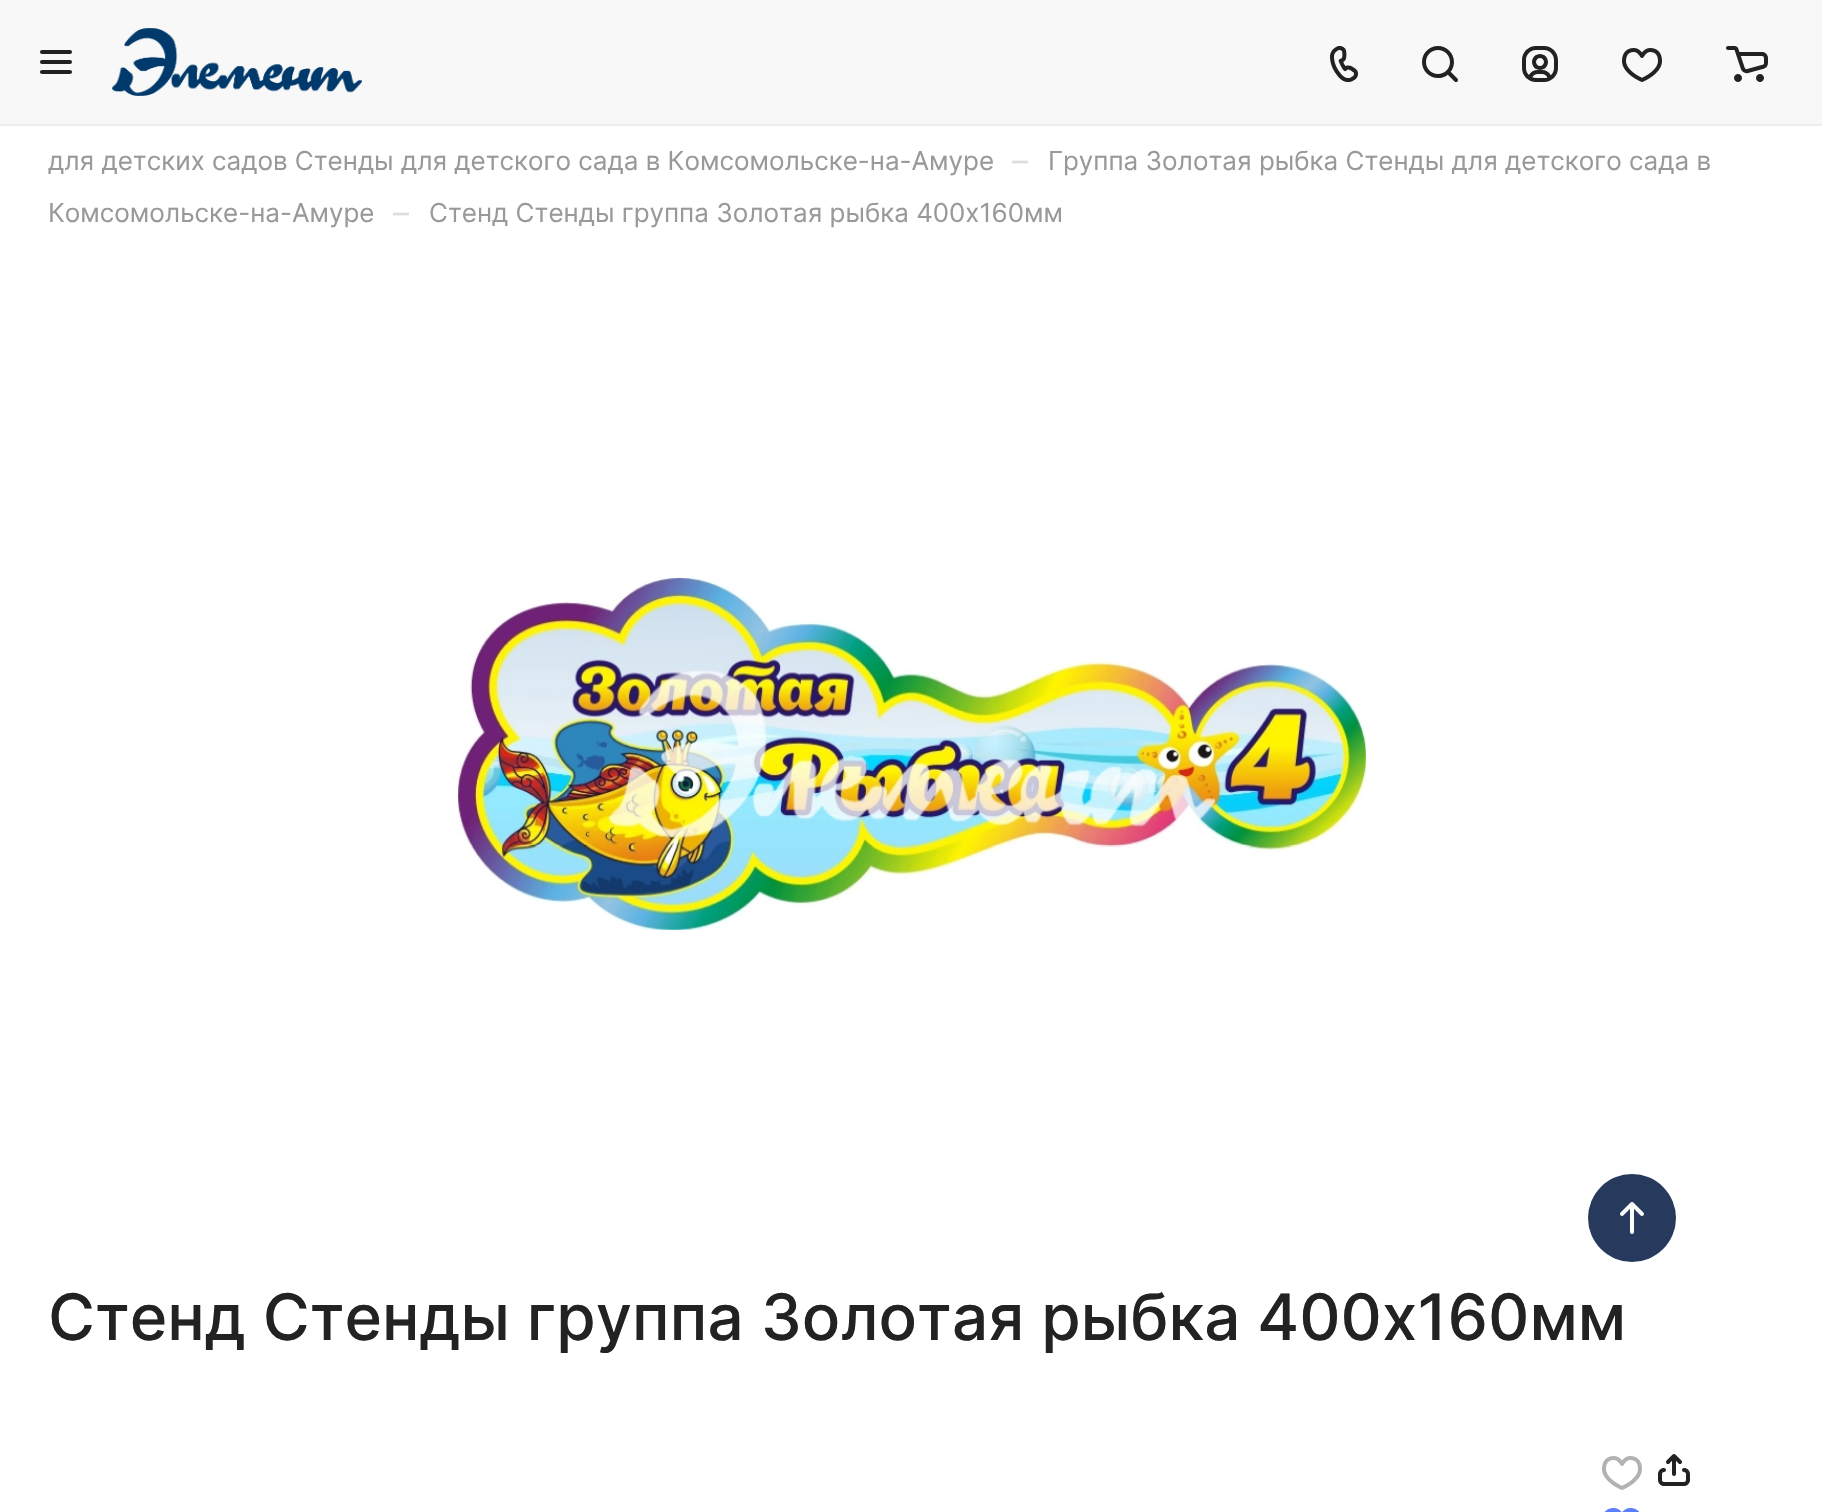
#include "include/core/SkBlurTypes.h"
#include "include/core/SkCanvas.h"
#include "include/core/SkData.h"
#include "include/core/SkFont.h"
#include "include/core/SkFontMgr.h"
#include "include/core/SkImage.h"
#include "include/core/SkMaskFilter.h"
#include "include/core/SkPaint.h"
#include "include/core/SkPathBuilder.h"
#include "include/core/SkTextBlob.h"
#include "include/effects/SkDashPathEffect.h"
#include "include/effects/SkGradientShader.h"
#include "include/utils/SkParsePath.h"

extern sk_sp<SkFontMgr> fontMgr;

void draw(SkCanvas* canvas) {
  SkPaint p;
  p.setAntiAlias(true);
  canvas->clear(SK_ColorWHITE);
  p.setColor(SkColorSetRGB(237, 237, 237));
  canvas->drawRect(SkRect::MakeLTRB(0, 124, 1822, 126), p);
  p.setColor(SkColorSetRGB(248, 248, 248));
  canvas->drawRect(SkRect::MakeLTRB(0, 0, 1822, 124), p);
  canvas->drawImageRect(SkImages::DeferredFromEncodedData(SkData::MakeFromFileName("images/1.png")), SkRect::MakeLTRB(40, 50, 72, 74), SkSamplingOptions());
  canvas->drawImageRect(SkImages::DeferredFromEncodedData(SkData::MakeFromFileName("images/2.png")), SkRect::MakeLTRB(112, 28, 362, 96), SkSamplingOptions());
  canvas->drawImageRect(SkImages::DeferredFromEncodedData(SkData::MakeFromFileName("images/3.png")), SkRect::MakeLTRB(1330, 46, 1358, 82), SkSamplingOptions());
  canvas->drawImageRect(SkImages::DeferredFromEncodedData(SkData::MakeFromFileName("images/4.png")), SkRect::MakeLTRB(1422, 46, 1458, 82), SkSamplingOptions());
  canvas->drawImageRect(SkImages::DeferredFromEncodedData(SkData::MakeFromFileName("images/5.png")), SkRect::MakeLTRB(1522, 46, 1558, 82), SkSamplingOptions());
  canvas->drawImageRect(SkImages::DeferredFromEncodedData(SkData::MakeFromFileName("images/6.png")), SkRect::MakeLTRB(1622, 48, 1662, 82), SkSamplingOptions());
  canvas->drawImageRect(SkImages::DeferredFromEncodedData(SkData::MakeFromFileName("images/7.png")), SkRect::MakeLTRB(1726, 46, 1768, 82), SkSamplingOptions());
  canvas->drawImageRect(SkImages::DeferredFromEncodedData(SkData::MakeFromFileName("images/8.png")), SkRect::MakeLTRB(458, 578, 1366, 930), SkSamplingOptions());
  canvas->drawImageRect(SkImages::DeferredFromEncodedData(SkData::MakeFromFileName("images/9.png")), SkRect::MakeLTRB(1602, 1456, 1642, 1490), SkSamplingOptions());
  canvas->drawImageRect(SkImages::DeferredFromEncodedData(SkData::MakeFromFileName("images/10.png")), SkRect::MakeLTRB(1604, 1508, 1640, 1512), SkSamplingOptions());
  canvas->drawImageRect(SkImages::DeferredFromEncodedData(SkData::MakeFromFileName("images/11.png")), SkRect::MakeLTRB(1658, 1454, 1690, 1486), SkSamplingOptions());
  p.setColor(SkColorSetRGB(39, 58, 93));
  canvas->drawCircle(1632, 1218, 44, p);
  canvas->drawImageRect(SkImages::DeferredFromEncodedData(SkData::MakeFromFileName("images/12.png")), SkRect::MakeLTRB(1620, 1202, 1644, 1234), SkSamplingOptions());
  SkFont font1(fontMgr->matchFamilyStyle("Inter", SkFontStyle::Normal()), 26);
  font1.setSubpixel(true);
  p.setColor(SkColorSetRGB(153, 153, 153));
  canvas->drawString("для детских садов Стенды для детского сада в Комсомольске-на-Амуре", 48, 170, font1, p);
  SkFont font2(fontMgr->matchFamilyStyle("Inter", SkFontStyle::Normal()), 32);
  font2.setSubpixel(true);
  p.setColor(SkColorSetRGB(221, 221, 221));
  canvas->drawString("–", 1012, 172, font2, p);
  p.setColor(SkColorSetRGB(153, 153, 153));
  canvas->drawString("Группа Золотая рыбка Стенды для детского сада в", 1048, 170, font1, p);
  canvas->drawString("Комсомольске-на-Амуре", 48, 222, font1, p);
  p.setColor(SkColorSetRGB(221, 221, 221));
  canvas->drawString("–", 393, 224, font2, p);
  p.setColor(SkColorSetRGB(153, 153, 153));
  canvas->drawString("Стенд Стенды группа Золотая рыбка 400х160мм", 429, 222, font1, p);
  SkFont font3(fontMgr->matchFamilyStyle("Inter", SkFontStyle(500, SkFontStyle::kNormal_Width, SkFontStyle::kUpright_Slant)), 64);
  font3.setSubpixel(true);
  p.setColor(SkColorSetRGB(34, 34, 34));
  canvas->drawString("Стенд Стенды группа Золотая рыбка 400х160мм", 48, 1340, font3, p);
}
